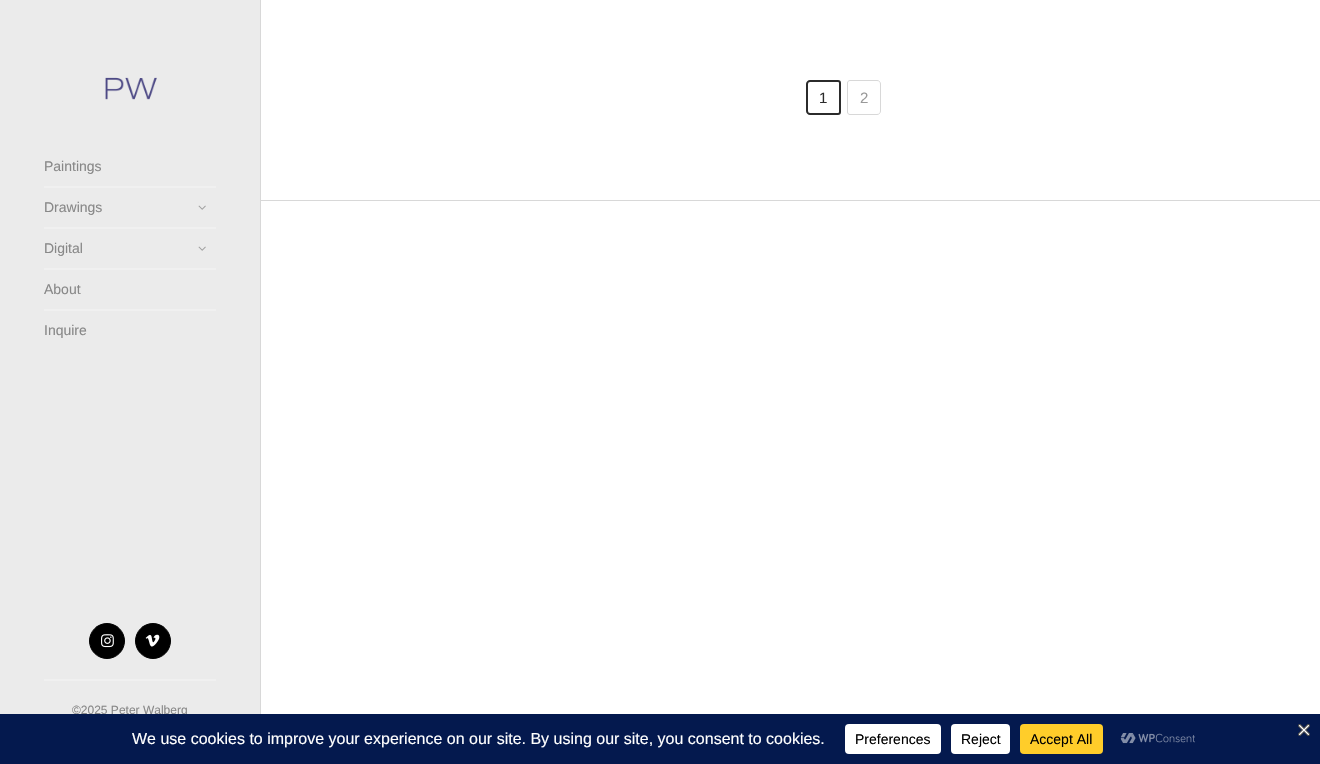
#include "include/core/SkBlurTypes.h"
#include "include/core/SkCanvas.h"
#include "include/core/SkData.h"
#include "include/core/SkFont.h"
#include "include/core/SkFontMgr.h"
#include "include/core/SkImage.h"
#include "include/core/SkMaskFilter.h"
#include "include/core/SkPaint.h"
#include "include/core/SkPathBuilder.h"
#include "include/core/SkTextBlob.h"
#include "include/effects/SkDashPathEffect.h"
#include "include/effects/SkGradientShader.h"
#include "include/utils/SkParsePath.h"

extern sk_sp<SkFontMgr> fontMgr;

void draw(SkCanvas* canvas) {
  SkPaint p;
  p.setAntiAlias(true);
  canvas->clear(SK_ColorWHITE);
  p.setColor(SkColorSetRGB(235, 235, 235));
  canvas->drawRect(SkRect::MakeLTRB(0, 0, 260, 714), p);
  canvas->drawImageRect(SkImages::DeferredFromEncodedData(SkData::MakeFromFileName("images/1.png")), SkRect::MakeLTRB(105, 77, 157, 100), SkSamplingOptions());
  p.setColor(SkColorSetRGB(216, 216, 216));
  canvas->drawRect(SkRect::MakeLTRB(260, 200, 1320, 201), p);
  canvas->drawRect(SkRect::MakeLTRB(260, 0, 261, 714), p);
  p.setStyle(SkPaint::kStroke_Style);
  p.setStrokeWidth(2);
  p.setColor(SkColorSetRGB(43, 43, 43));
  canvas->drawPath(SkPathBuilder().moveTo(810, 81).lineTo(838, 81).cubicTo(839, 81, 840, 82, 840, 83).lineTo(840, 112).cubicTo(840, 113, 839, 114, 838, 114).lineTo(810, 114).cubicTo(808.5f, 114, 807, 112.5f, 807, 111).lineTo(807, 84).cubicTo(807, 82.5f, 808.5f, 81, 810, 81).close().detach(), p);
  p.setStrokeWidth(1);
  p.setColor(SkColorSetRGB(216, 216, 216));
  canvas->drawPath(SkPathBuilder().moveTo(850, 80.5f).lineTo(877, 80.5f).cubicTo(879, 80.5f, 880.5f, 82, 880.5f, 84).lineTo(880.5f, 111).cubicTo(880.5f, 113, 879, 114.5f, 877, 114.5f).lineTo(850, 114.5f).cubicTo(848.5f, 114.5f, 847.5f, 113.5f, 847.5f, 112).lineTo(847.5f, 83).cubicTo(847.5f, 81.5f, 848.5f, 80.5f, 850, 80.5f).close().detach(), p);
  p.setStyle(SkPaint::kFill_Style);
  p.setColor(SkColorSetRGB(240, 240, 240));
  canvas->drawRect(SkRect::MakeLTRB(44, 186, 216, 188), p);
  canvas->drawRect(SkRect::MakeLTRB(44, 227, 216, 229), p);
  canvas->drawImageRect(SkImages::DeferredFromEncodedData(SkData::MakeFromFileName("images/2.png")), SkRect::MakeLTRB(198, 205, 206, 210), SkSamplingOptions());
  canvas->drawRect(SkRect::MakeLTRB(44, 268, 216, 270), p);
  canvas->drawImageRect(SkImages::DeferredFromEncodedData(SkData::MakeFromFileName("images/2.png")), SkRect::MakeLTRB(198, 246, 206, 251), SkSamplingOptions());
  canvas->drawRect(SkRect::MakeLTRB(44, 309, 216, 311), p);
  canvas->drawRect(SkRect::MakeLTRB(44, 679, 216, 681), p);
  p.setColor(SK_ColorBLACK);
  canvas->drawCircle(107, 641, 17.5f, p);
  p.setStyle(SkPaint::kStroke_Style);
  canvas->drawCircle(107, 641, 17.5f, p);
  canvas->drawImageRect(SkImages::DeferredFromEncodedData(SkData::MakeFromFileName("images/3.png")), SkRect::MakeLTRB(101, 634, 114, 648), SkSamplingOptions());
  p.setStyle(SkPaint::kFill_Style);
  canvas->drawCircle(153, 641, 17.5f, p);
  p.setStyle(SkPaint::kStroke_Style);
  canvas->drawCircle(153, 641, 17.5f, p);
  canvas->drawImageRect(SkImages::DeferredFromEncodedData(SkData::MakeFromFileName("images/4.png")), SkRect::MakeLTRB(145, 634, 160, 647), SkSamplingOptions());
  SkFont font1(fontMgr->matchFamilyStyle("Liberation Sans", SkFontStyle::Normal()), 15);
  font1.setSubpixel(true);
  p.setStyle(SkPaint::kFill_Style);
  p.setColor(SkColorSetRGB(43, 43, 43));
  canvas->drawString("1", 819, 103, font1, p);
  p.setColor(SkColorSetRGB(153, 153, 153));
  canvas->drawString("2", 860, 103, font1, p);
  SkFont font2(fontMgr->matchFamilyStyle("Liberation Sans", SkFontStyle::Normal()), 14);
  font2.setSubpixel(true);
  p.setColor(SkColorSetRGB(136, 136, 136));
  canvas->drawString("Paintings", 44, 171, font2, p);
  canvas->drawString("Drawings", 44, 212, font2, p);
  canvas->drawString("Digital", 44, 253, font2, p);
  canvas->drawString("About", 44, 294, font2, p);
  canvas->drawString("Inquire", 44, 335, font2, p);
  SkFont font3(fontMgr->matchFamilyStyle("Liberation Sans", SkFontStyle::Normal()), 12);
  font3.setSubpixel(true);
  canvas->drawString("©2025 Peter Walberg", 72, 714, font3, p);
  p.setColor(SkColorSetRGB(4, 25, 78));
  canvas->drawRect(SkRect::MakeLTRB(0, 714, 1320, 764), p);
  canvas->drawImageRect(SkImages::DeferredFromEncodedData(SkData::MakeFromFileName("images/5.png")), SkRect::MakeLTRB(1298, 724, 1310, 736), SkSamplingOptions());
  SkFont font4(fontMgr->matchFamilyStyle("Liberation Sans", SkFontStyle::Normal()), 16);
  font4.setSubpixel(true);
  p.setColor(SK_ColorWHITE);
  canvas->drawString("We use cookies to improve your experience on our site. By using our site, you consent to cookies.", 132, 744, font4, p);
  canvas->drawRoundRect(SkRect::MakeLTRB(845, 724, 941, 754), 4, 4, p);
  p.setColor(SK_ColorBLACK);
  canvas->drawString("Preferences", 855, 744, font2, p);
  p.setColor(SK_ColorWHITE);
  canvas->drawRoundRect(SkRect::MakeLTRB(951, 724, 1010, 754), 4, 4, p);
  p.setColor(SK_ColorBLACK);
  canvas->drawString("Reject", 961, 744, font2, p);
  p.setColor(SkColorSetRGB(255, 205, 42));
  canvas->drawRoundRect(SkRect::MakeLTRB(1020, 724, 1103, 754), 4, 4, p);
  p.setColor(SK_ColorBLACK);
  canvas->drawString("Accept All", 1030, 744, font2, p);
  canvas->drawImageRect(SkImages::DeferredFromEncodedData(SkData::MakeFromFileName("images/6.png")), SkRect::MakeLTRB(1120, 733, 1195, 744), SkSamplingOptions());
}
